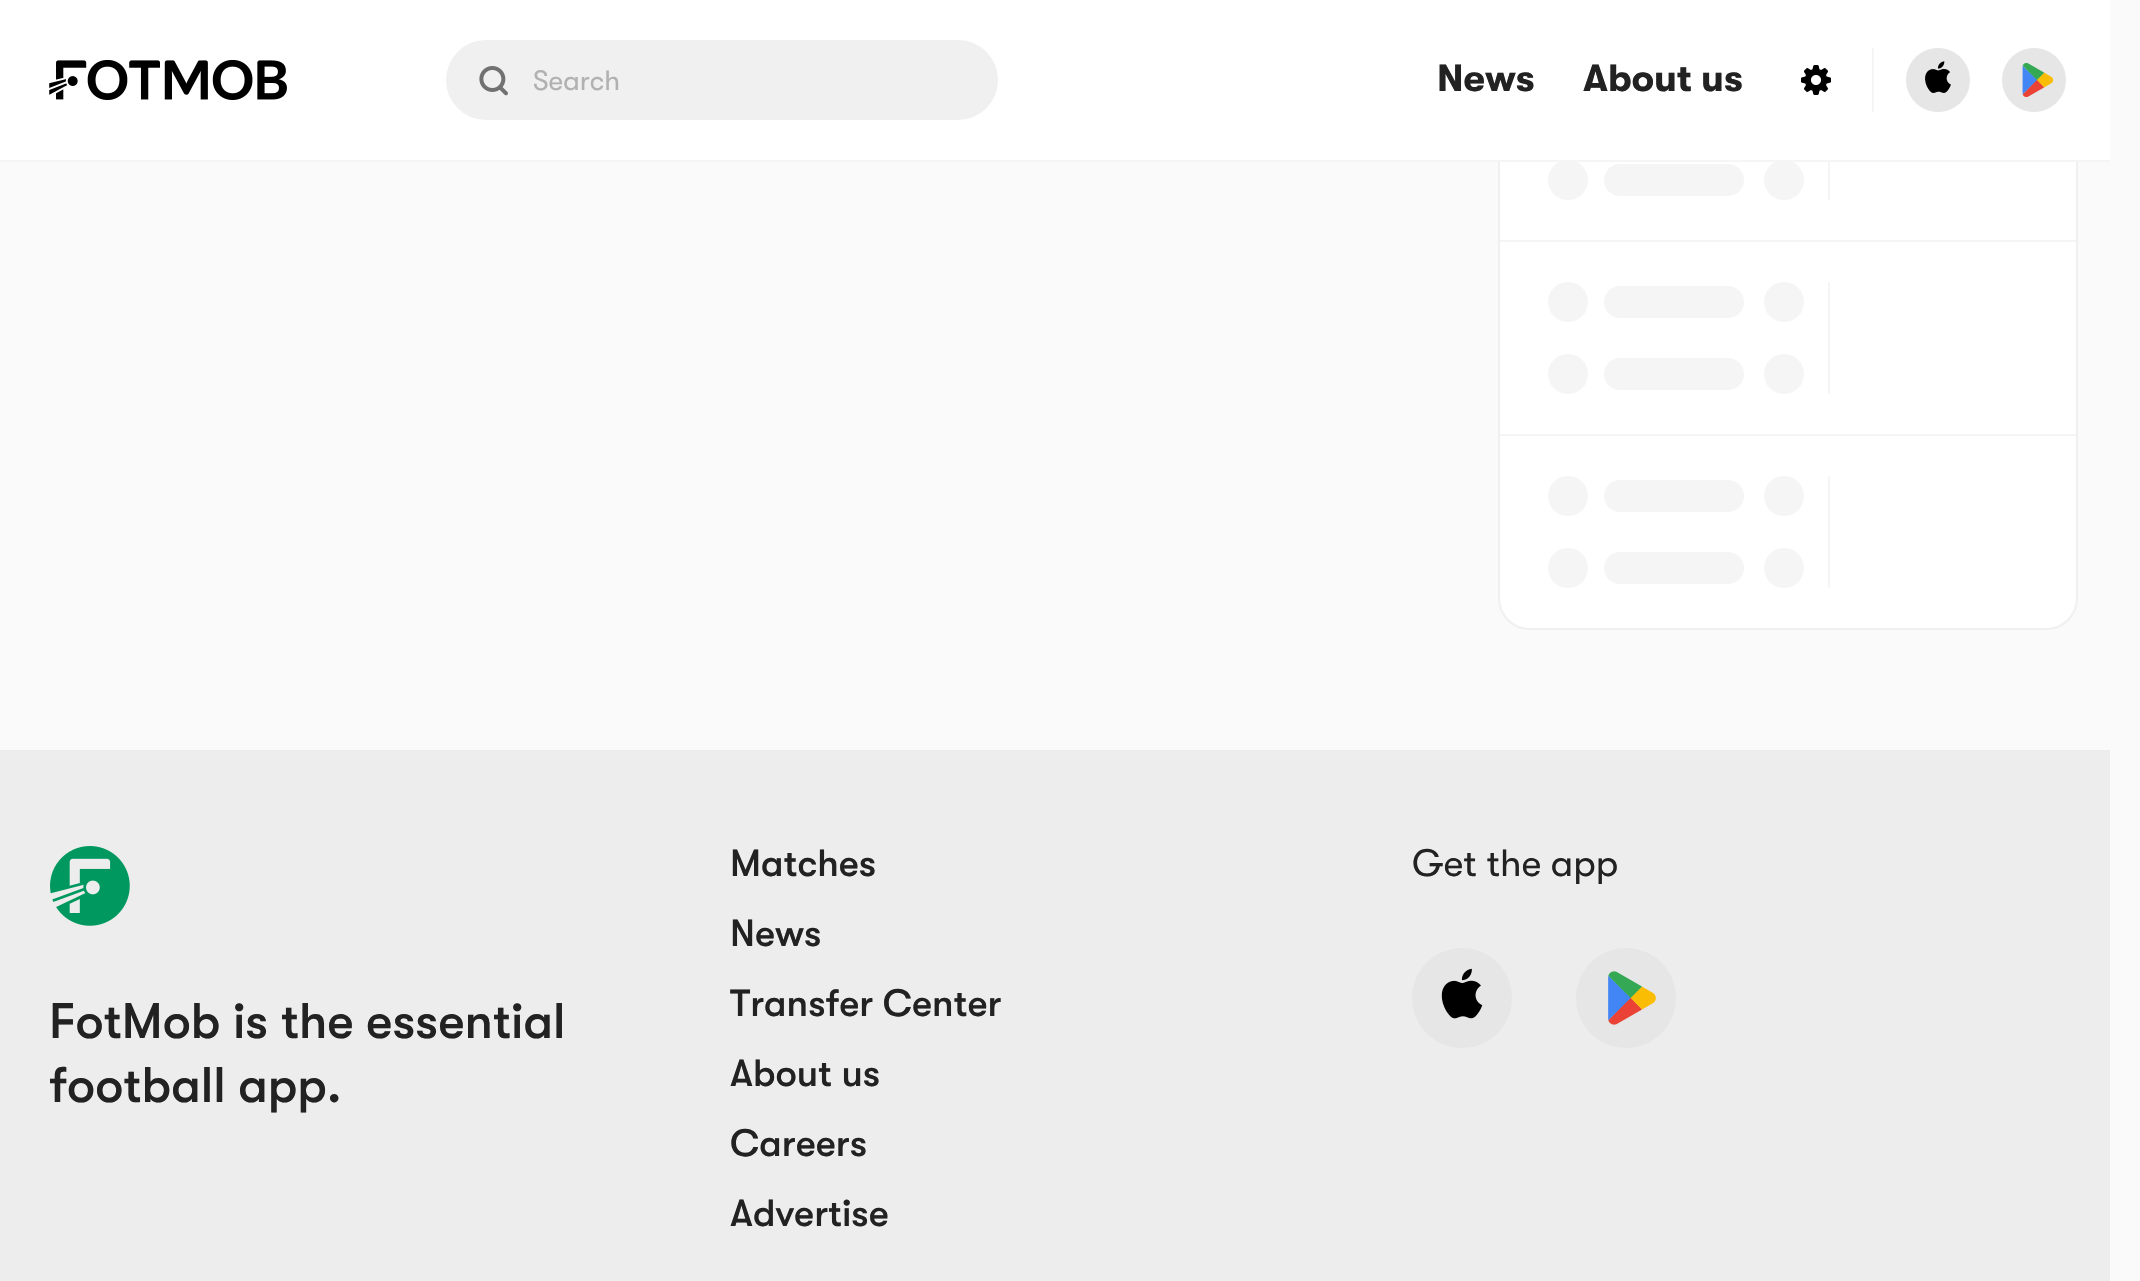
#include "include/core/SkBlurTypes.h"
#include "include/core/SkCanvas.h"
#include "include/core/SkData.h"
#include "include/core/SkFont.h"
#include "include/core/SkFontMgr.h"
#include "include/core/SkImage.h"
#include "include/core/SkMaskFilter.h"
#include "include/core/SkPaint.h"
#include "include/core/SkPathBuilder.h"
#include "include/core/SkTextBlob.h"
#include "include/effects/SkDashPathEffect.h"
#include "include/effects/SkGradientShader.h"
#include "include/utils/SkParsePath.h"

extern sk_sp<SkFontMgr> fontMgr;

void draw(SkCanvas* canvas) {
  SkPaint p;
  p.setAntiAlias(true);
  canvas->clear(SkColorSetRGB(250, 250, 250));
  p.setColor(SK_ColorWHITE);
  canvas->drawRoundRect(SkRect::MakeLTRB(1499, -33, 2077, 629), 31, 31, p);
  p.setStyle(SkPaint::kStroke_Style);
  p.setStrokeWidth(2);
  p.setColor(SkColorSetRGB(240, 240, 240));
  canvas->drawRoundRect(SkRect::MakeLTRB(1499, -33, 2077, 629), 31, 31, p);
  p.setStyle(SkPaint::kFill_Style);
  p.setColor(SkColorSetRGB(245, 245, 245));
  canvas->drawCircle(1568, 180, 20, p);
  canvas->drawCircle(1784, 180, 20, p);
  canvas->drawRect(SkRect::MakeLTRB(0, 160, 2110, 162), p);
  p.setColor(SK_ColorWHITE);
  canvas->drawRect(SkRect::MakeLTRB(0, 0, 2110, 160), p);
  canvas->drawImageRect(SkImages::DeferredFromEncodedData(SkData::MakeFromFileName("images/1.png")), SkRect::MakeLTRB(49, 60, 287, 100), SkSamplingOptions());
  p.setColor(SkColorSetRGB(240, 240, 240));
  canvas->drawRoundRect(SkRect::MakeLTRB(446, 40, 998, 120), 40, 40, p);
  canvas->drawImageRect(SkImages::DeferredFromEncodedData(SkData::MakeFromFileName("images/2.png")), SkRect::MakeLTRB(479, 66, 508, 96), SkSamplingOptions());
  canvas->drawImageRect(SkImages::DeferredFromEncodedData(SkData::MakeFromFileName("images/3.png")), SkRect::MakeLTRB(1801, 65, 1831, 95), SkSamplingOptions());
  p.setColor(SkColorSetRGB(245, 245, 245));
  canvas->drawRect(SkRect::MakeLTRB(1872, 48, 1874, 112), p);
  canvas->drawImageRect(SkImages::DeferredFromEncodedData(SkData::MakeFromFileName("images/4.png")), SkRect::MakeLTRB(1906, 48, 1970, 112), SkSamplingOptions());
  canvas->drawImageRect(SkImages::DeferredFromEncodedData(SkData::MakeFromFileName("images/5.png")), SkRect::MakeLTRB(2002, 48, 2066, 112), SkSamplingOptions());
  canvas->drawRect(SkRect::MakeLTRB(1500, 240, 2076, 242), p);
  canvas->drawRoundRect(SkRect::MakeLTRB(1604, 164, 1744, 196), 16, 16, p);
  canvas->drawRect(SkRect::MakeLTRB(1828, 162, 1830, 200), p);
  canvas->drawRect(SkRect::MakeLTRB(1500, 434, 2076, 436), p);
  canvas->drawCircle(1568, 302, 20, p);
  canvas->drawRoundRect(SkRect::MakeLTRB(1604, 286, 1744, 318), 16, 16, p);
  canvas->drawCircle(1784, 302, 20, p);
  canvas->drawCircle(1568, 374, 20, p);
  canvas->drawRoundRect(SkRect::MakeLTRB(1604, 358, 1744, 390), 16, 16, p);
  canvas->drawCircle(1784, 374, 20, p);
  canvas->drawRect(SkRect::MakeLTRB(1828, 282, 1830, 394), p);
  canvas->drawCircle(1568, 496, 20, p);
  canvas->drawRoundRect(SkRect::MakeLTRB(1604, 480, 1744, 512), 16, 16, p);
  canvas->drawCircle(1784, 496, 20, p);
  canvas->drawCircle(1568, 568, 20, p);
  canvas->drawRoundRect(SkRect::MakeLTRB(1604, 552, 1744, 584), 16, 16, p);
  canvas->drawCircle(1784, 568, 20, p);
  canvas->drawRect(SkRect::MakeLTRB(1828, 476, 1830, 588), p);
  p.setColor(SkColorSetRGB(237, 237, 237));
  canvas->drawRect(SkRect::MakeLTRB(0, 750, 2110, 1281), p);
  canvas->drawImageRect(SkImages::DeferredFromEncodedData(SkData::MakeFromFileName("images/6.png")), SkRect::MakeLTRB(50, 846, 130, 926), SkSamplingOptions());
  canvas->drawImageRect(SkImages::DeferredFromEncodedData(SkData::MakeFromFileName("images/7.png")), SkRect::MakeLTRB(1412, 948, 1512, 1048), SkSamplingOptions());
  canvas->drawImageRect(SkImages::DeferredFromEncodedData(SkData::MakeFromFileName("images/8.png")), SkRect::MakeLTRB(1576, 948, 1676, 1048), SkSamplingOptions());
  SkFont font1(fontMgr->matchFamilyStyle("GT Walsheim", SkFontStyle::Normal()), 28);
  font1.setSubpixel(true);
  p.setColor(SkColorSetRGB(177, 177, 177));
  canvas->drawString("Search", 533, 90, font1, p);
  SkFont font2(fontMgr->matchFamilyStyle("GT Walsheim", SkFontStyle::Bold()), 38);
  font2.setSubpixel(true);
  p.setColor(SkColorSetRGB(34, 34, 34));
  canvas->drawString("News", 1437, 91, font2, p);
  canvas->drawString("About us", 1583, 91, font2, p);
  SkFont font3(fontMgr->matchFamilyStyle("GT Walsheim", SkFontStyle(500, SkFontStyle::kNormal_Width, SkFontStyle::kUpright_Slant)), 50);
  font3.setSubpixel(true);
  canvas->drawString("FotMob is the essential", 49, 1038, font3, p);
  canvas->drawString("football app.", 49, 1102, font3, p);
  SkFont font4(fontMgr->matchFamilyStyle("GT Walsheim", SkFontStyle(500, SkFontStyle::kNormal_Width, SkFontStyle::kUpright_Slant)), 38);
  font4.setSubpixel(true);
  canvas->drawString("Matches", 730, 876, font4, p);
  canvas->drawString("News", 730, 946, font4, p);
  canvas->drawString("Transfer Center", 730, 1016, font4, p);
  canvas->drawString("About us", 730, 1086, font4, p);
  canvas->drawString("Careers", 730, 1156, font4, p);
  canvas->drawString("Advertise", 730, 1226, font4, p);
  SkFont font5(fontMgr->matchFamilyStyle("GT Walsheim", SkFontStyle::Normal()), 38);
  font5.setSubpixel(true);
  canvas->drawString("Get the app", 1412, 876, font5, p);
}
